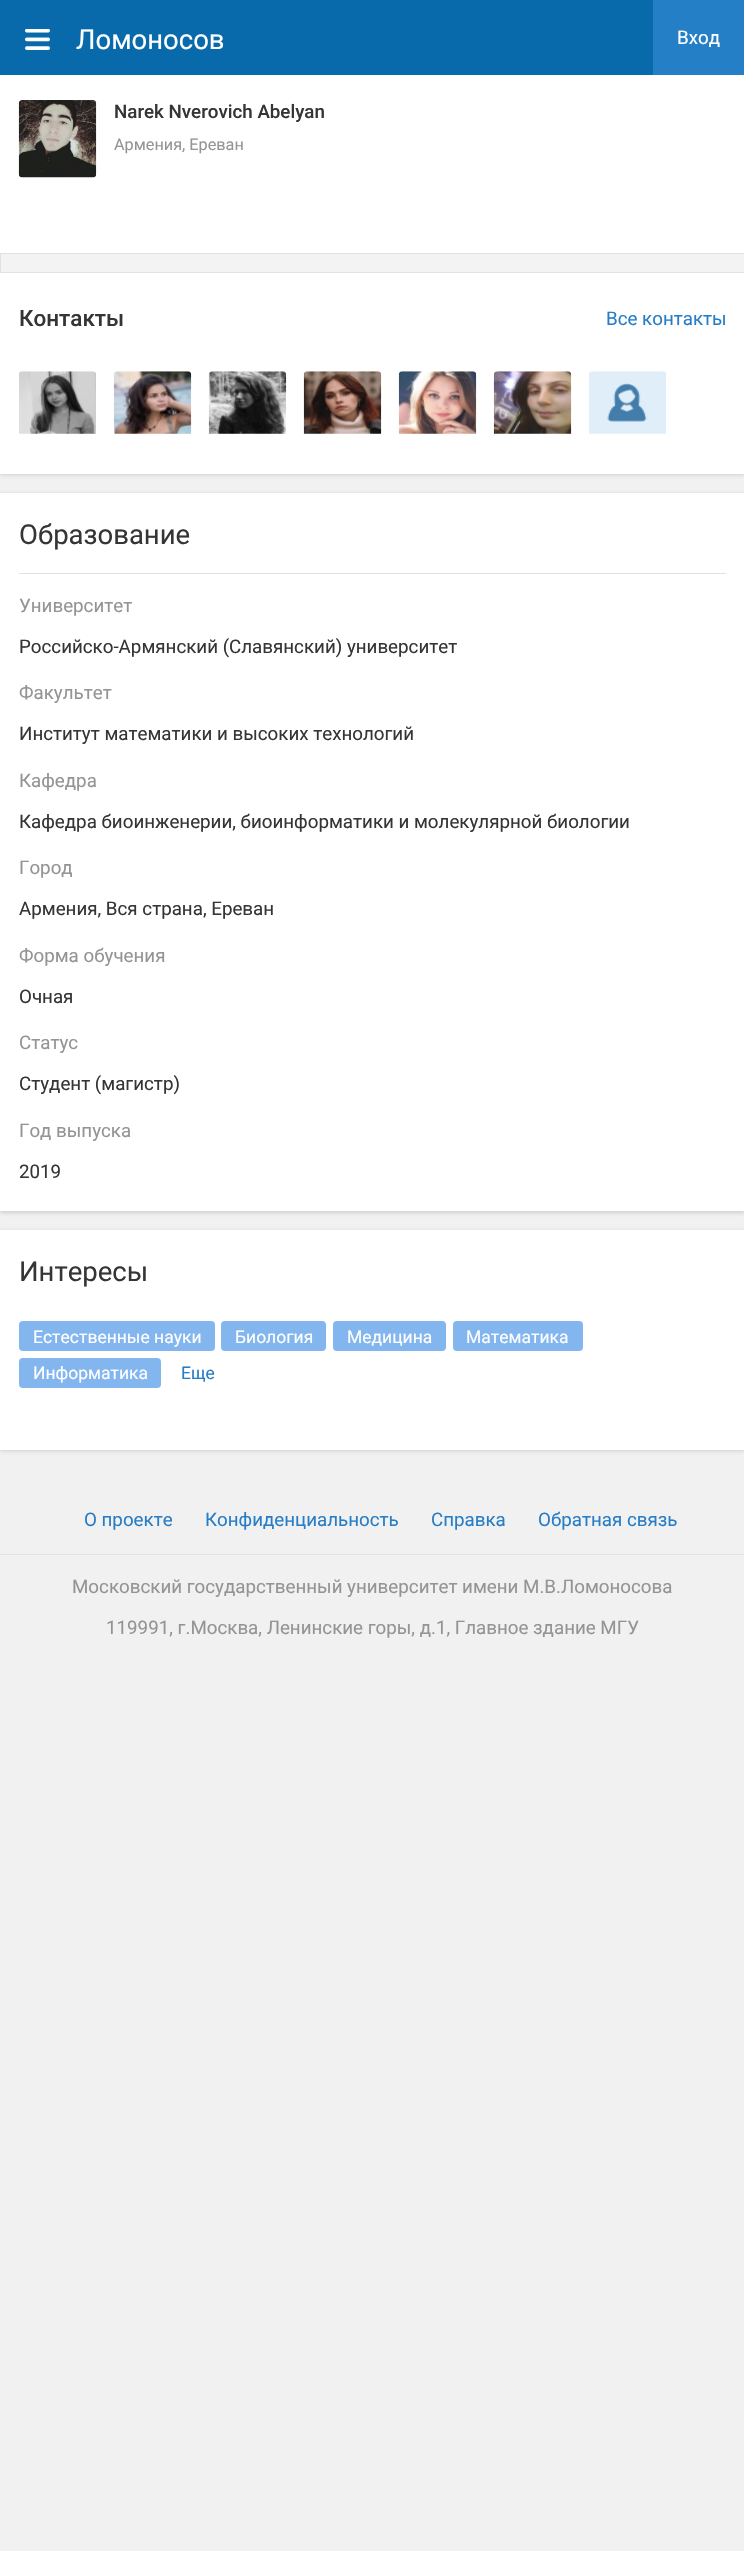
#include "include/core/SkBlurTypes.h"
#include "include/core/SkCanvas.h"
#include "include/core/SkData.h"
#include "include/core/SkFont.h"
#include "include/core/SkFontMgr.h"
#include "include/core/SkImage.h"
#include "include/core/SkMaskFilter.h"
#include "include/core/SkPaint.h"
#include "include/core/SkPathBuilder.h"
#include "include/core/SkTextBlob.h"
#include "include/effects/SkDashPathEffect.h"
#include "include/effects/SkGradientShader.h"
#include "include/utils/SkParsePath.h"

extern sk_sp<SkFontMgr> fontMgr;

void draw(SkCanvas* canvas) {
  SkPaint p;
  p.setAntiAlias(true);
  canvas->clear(SkColorSetRGB(241, 241, 241));
  p.setColor(SkColorSetARGB(48, 50, 60, 73));
  p.setMaskFilter(SkMaskFilter::MakeBlur(kNormal_SkBlurStyle, 2));
  canvas->drawRect(SkRect::MakeLTRB(0, 76, 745, 475), p);
  p.setMaskFilter(nullptr);
  p.setColor(SkColorSetRGB(8, 106, 170));
  canvas->drawRect(SkRect::MakeLTRB(0, 0, 653, 75), p);
  canvas->drawImageRect(SkImages::DeferredFromEncodedData(SkData::MakeFromFileName("images/1.png")), SkRect::MakeLTRB(25, 29, 50, 50), SkSamplingOptions());
  p.setColor(SkColorSetRGB(36, 127, 198));
  canvas->drawRect(SkRect::MakeLTRB(653, 0, 744, 75), p);
  p.setColor(SK_ColorWHITE);
  canvas->drawRect(SkRect::MakeLTRB(0, 75, 744, 474), p);
  canvas->drawImageRect(SkImages::DeferredFromEncodedData(SkData::MakeFromFileName("images/2.png")), SkRect::MakeLTRB(18, 100, 97, 178), SkSamplingOptions());
  p.setColor(SkColorSetRGB(243, 243, 243));
  canvas->drawRect(SkRect::MakeLTRB(0.5f, 253.5f, 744.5f, 272.5f), p);
  p.setStyle(SkPaint::kStroke_Style);
  p.setStrokeWidth(1);
  p.setColor(SkColorSetRGB(226, 226, 226));
  canvas->drawRect(SkRect::MakeLTRB(0.5f, 253.5f, 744.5f, 272.5f), p);
  canvas->drawImageRect(SkImages::DeferredFromEncodedData(SkData::MakeFromFileName("images/3.png")), SkRect::MakeLTRB(19, 371, 96, 434), SkSamplingOptions());
  canvas->drawImageRect(SkImages::DeferredFromEncodedData(SkData::MakeFromFileName("images/4.png")), SkRect::MakeLTRB(113, 371, 192, 434), SkSamplingOptions());
  canvas->drawImageRect(SkImages::DeferredFromEncodedData(SkData::MakeFromFileName("images/5.png")), SkRect::MakeLTRB(208, 371, 287, 434), SkSamplingOptions());
  canvas->drawImageRect(SkImages::DeferredFromEncodedData(SkData::MakeFromFileName("images/6.png")), SkRect::MakeLTRB(303, 371, 382, 434), SkSamplingOptions());
  canvas->drawImageRect(SkImages::DeferredFromEncodedData(SkData::MakeFromFileName("images/7.png")), SkRect::MakeLTRB(398, 371, 477, 434), SkSamplingOptions());
  canvas->drawImageRect(SkImages::DeferredFromEncodedData(SkData::MakeFromFileName("images/8.png")), SkRect::MakeLTRB(493, 371, 572, 434), SkSamplingOptions());
  canvas->drawImageRect(SkImages::DeferredFromEncodedData(SkData::MakeFromFileName("images/9.png")), SkRect::MakeLTRB(589, 371, 666, 434), SkSamplingOptions());
  p.setStyle(SkPaint::kFill_Style);
  p.setColor(SkColorSetARGB(48, 50, 60, 73));
  p.setMaskFilter(SkMaskFilter::MakeBlur(kNormal_SkBlurStyle, 2));
  canvas->drawRect(SkRect::MakeLTRB(0, 494, 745, 1213), p);
  p.setMaskFilter(nullptr);
  p.setColor(SK_ColorWHITE);
  canvas->drawRect(SkRect::MakeLTRB(0, 493, 744, 1211), p);
  p.setColor(SkColorSetRGB(226, 226, 226));
  canvas->drawRect(SkRect::MakeLTRB(19, 573, 726, 574), p);
  p.setColor(SkColorSetARGB(48, 50, 60, 73));
  p.setMaskFilter(SkMaskFilter::MakeBlur(kNormal_SkBlurStyle, 2));
  canvas->drawRect(SkRect::MakeLTRB(0, 1231, 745, 1451), p);
  p.setMaskFilter(nullptr);
  p.setColor(SK_ColorWHITE);
  canvas->drawRect(SkRect::MakeLTRB(0, 1230, 744, 1450), p);
  p.setColor(SkColorSetRGB(131, 182, 239));
  canvas->drawRoundRect(SkRect::MakeLTRB(19, 1321, 215, 1351), 4, 4, p);
  canvas->drawRoundRect(SkRect::MakeLTRB(221, 1321, 326, 1351), 4, 4, p);
  canvas->drawRoundRect(SkRect::MakeLTRB(333, 1321, 446, 1351), 4, 4, p);
  canvas->drawRoundRect(SkRect::MakeLTRB(453, 1321, 583, 1351), 4, 4, p);
  canvas->drawRoundRect(SkRect::MakeLTRB(19, 1358, 161, 1388), 4, 4, p);
  p.setColor(SkColorSetRGB(226, 226, 226));
  canvas->drawRect(SkRect::MakeLTRB(0, 1554, 744, 1555), p);
  SkFont font1(fontMgr->matchFamilyStyle("Roboto", SkFontStyle::Normal()), 27.5f);
  font1.setSubpixel(true);
  p.setColor(SK_ColorWHITE);
  canvas->drawString("Ломоносов", 76, 49, font1, p);
  SkFont font2(fontMgr->matchFamilyStyle("Roboto", SkFontStyle::Normal()), 18.75f);
  font2.setSubpixel(true);
  canvas->drawString("Вход", 677, 44, font2, p);
  SkFont font3(fontMgr->matchFamilyStyle("Roboto", SkFontStyle(500, SkFontStyle::kNormal_Width, SkFontStyle::kUpright_Slant)), 18.75f);
  font3.setSubpixel(true);
  p.setColor(SkColorSetRGB(53, 53, 53));
  canvas->drawString("Narek Nverovich Abelyan", 114, 118, font3, p);
  SkFont font4(fontMgr->matchFamilyStyle("Roboto", SkFontStyle::Normal()), 16.25f);
  font4.setSubpixel(true);
  p.setColor(SkColorSetRGB(148, 148, 148));
  canvas->drawString("Армения, Ереван", 114, 150, font4, p);
  SkFont font5(fontMgr->matchFamilyStyle("Roboto", SkFontStyle(500, SkFontStyle::kNormal_Width, SkFontStyle::kUpright_Slant)), 22.5f);
  font5.setSubpixel(true);
  p.setColor(SkColorSetRGB(53, 53, 53));
  canvas->drawString("Контакты", 19, 326, font5, p);
  p.setColor(SkColorSetRGB(39, 125, 198));
  canvas->drawString("Все контакты", 606, 325, font2, p);
  p.setColor(SkColorSetRGB(53, 53, 53));
  canvas->drawString("Образование", 19, 544, font1, p);
  p.setColor(SkColorSetRGB(148, 148, 148));
  canvas->drawString("Университет", 19, 612, font2, p);
  p.setColor(SkColorSetRGB(53, 53, 53));
  canvas->drawString("Российско-Армянский (Славянский) университет", 19, 653, font2, p);
  p.setColor(SkColorSetRGB(148, 148, 148));
  canvas->drawString("Факультет", 19, 699, font2, p);
  p.setColor(SkColorSetRGB(53, 53, 53));
  canvas->drawString("Институт математики и высоких технологий", 19, 740, font2, p);
  p.setColor(SkColorSetRGB(148, 148, 148));
  canvas->drawString("Кафедра", 19, 787, font2, p);
  p.setColor(SkColorSetRGB(53, 53, 53));
  canvas->drawString("Кафедра биоинженерии, биоинформатики и молекулярной биологии", 19, 828, font2, p);
  p.setColor(SkColorSetRGB(148, 148, 148));
  canvas->drawString("Город", 19, 874, font2, p);
  p.setColor(SkColorSetRGB(53, 53, 53));
  canvas->drawString("Армения, Вся страна, Ереван", 19, 915, font2, p);
  p.setColor(SkColorSetRGB(148, 148, 148));
  canvas->drawString("Форма обучения", 19, 962, font2, p);
  p.setColor(SkColorSetRGB(53, 53, 53));
  canvas->drawString("Очная", 19, 1003, font2, p);
  p.setColor(SkColorSetRGB(148, 148, 148));
  canvas->drawString("Статус", 19, 1049, font2, p);
  p.setColor(SkColorSetRGB(53, 53, 53));
  canvas->drawString("Студент (магистр)", 19, 1090, font2, p);
  p.setColor(SkColorSetRGB(148, 148, 148));
  canvas->drawString("Год выпуска", 19, 1137, font2, p);
  p.setColor(SkColorSetRGB(53, 53, 53));
  canvas->drawString("2019", 19, 1178, font2, p);
  canvas->drawString("Интересы", 19, 1281, font1, p);
  SkFont font6(fontMgr->matchFamilyStyle("Roboto", SkFontStyle::Normal()), 17.5f);
  font6.setSubpixel(true);
  p.setColor(SK_ColorWHITE);
  canvas->drawString("Естественные науки", 33, 1343, font6, p);
  canvas->drawString("Биология", 235, 1343, font6, p);
  canvas->drawString("Медицина", 347, 1343, font6, p);
  canvas->drawString("Математика", 466, 1343, font6, p);
  canvas->drawString("Информатика", 33, 1379, font6, p);
  p.setColor(SkColorSetRGB(39, 125, 198));
  canvas->drawString("Еще", 181, 1379, font6, p);
  canvas->drawString("О проекте", 84, 1526, font2, p);
  canvas->drawString("Конфиденциальность", 205, 1526, font2, p);
  canvas->drawString("Cправка", 431, 1526, font2, p);
  canvas->drawString("Обратная связь", 538, 1526, font2, p);
  p.setColor(SkColorSetRGB(148, 148, 148));
  canvas->drawString("Московский государственный университет имени М.В.Ломоносова", 72, 1593, font2, p);
  canvas->drawString("119991, г.Москва, Ленинские горы, д.1, Главное здание МГУ", 106, 1634, font2, p);
}
